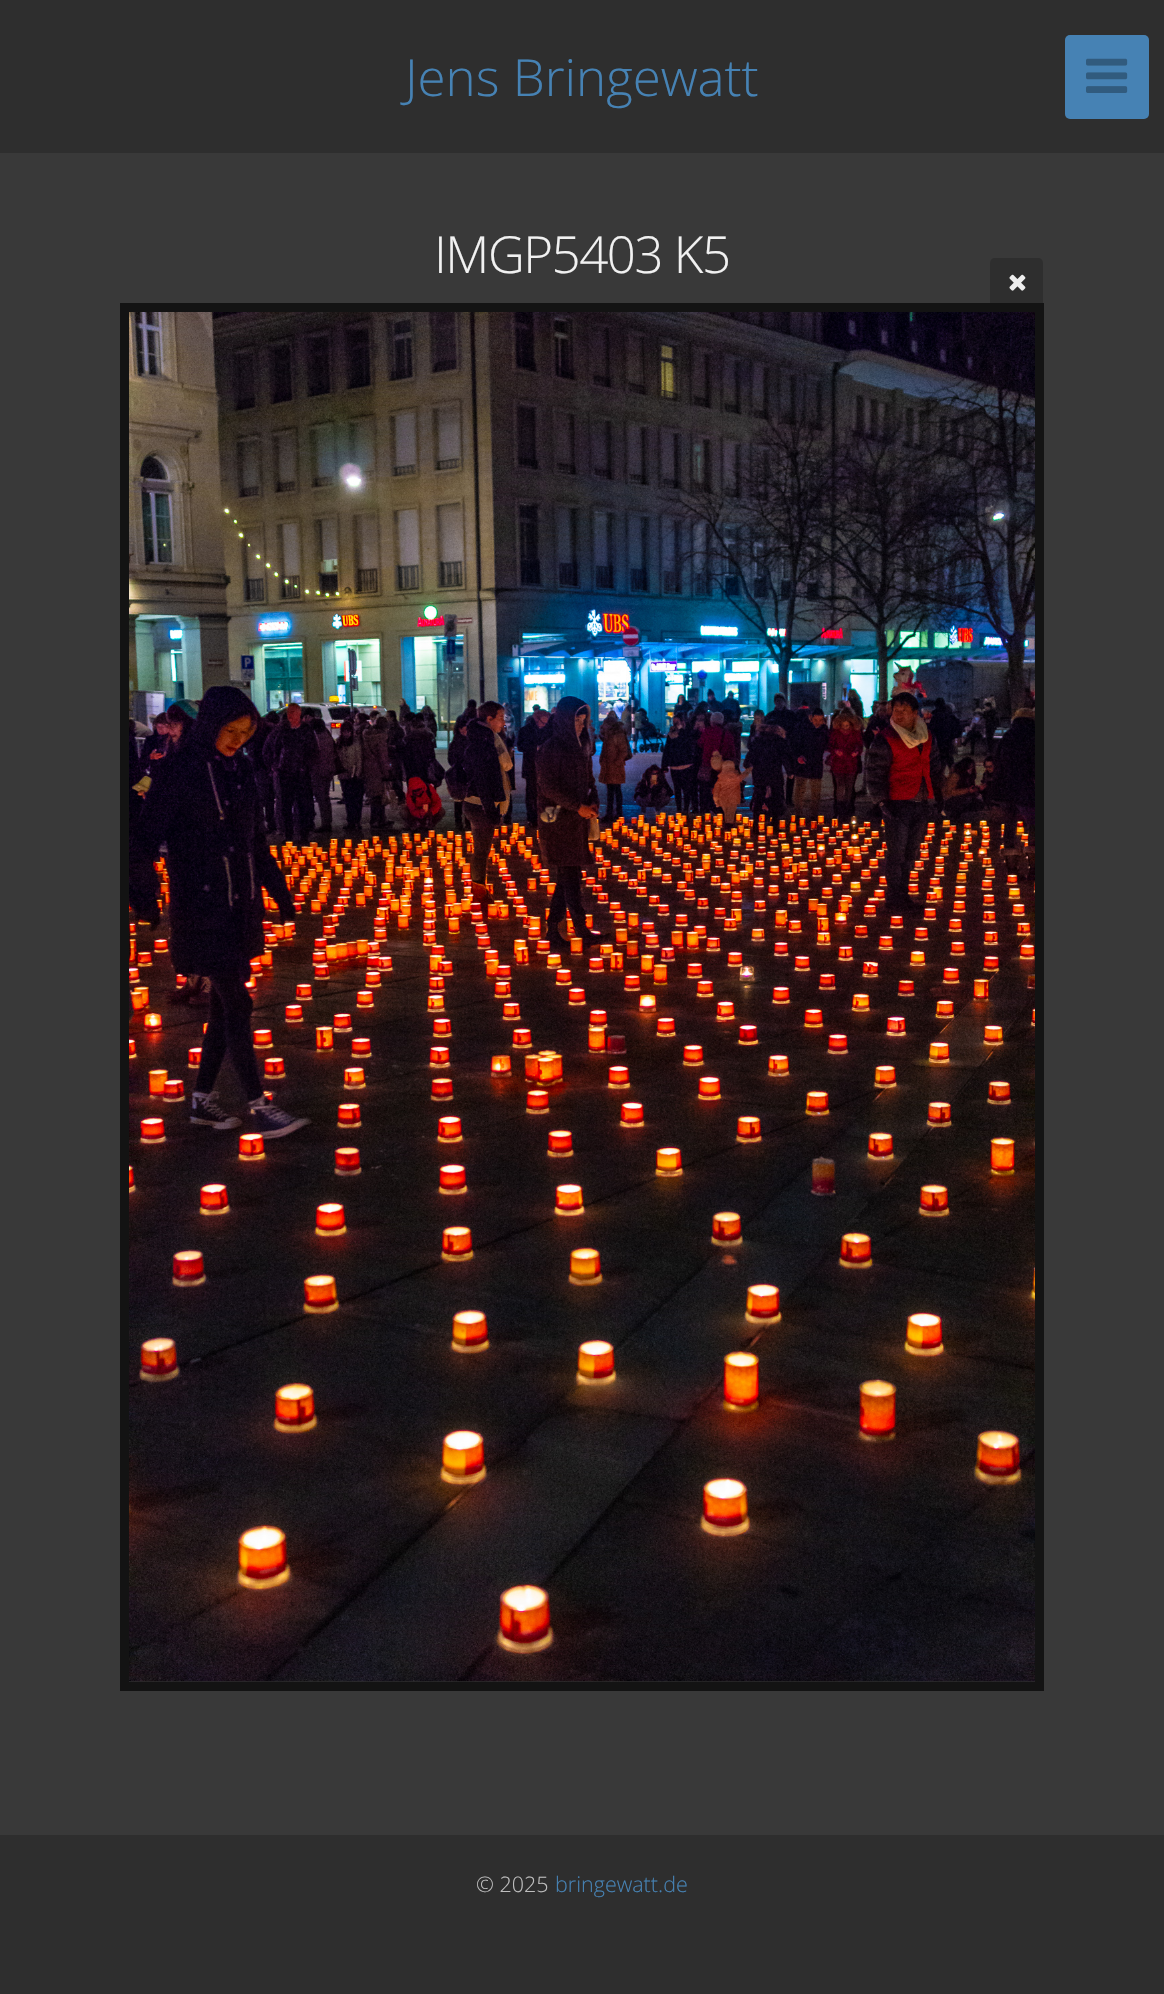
#include "include/core/SkBlurTypes.h"
#include "include/core/SkCanvas.h"
#include "include/core/SkData.h"
#include "include/core/SkFont.h"
#include "include/core/SkFontMgr.h"
#include "include/core/SkImage.h"
#include "include/core/SkMaskFilter.h"
#include "include/core/SkPaint.h"
#include "include/core/SkPathBuilder.h"
#include "include/core/SkTextBlob.h"
#include "include/effects/SkDashPathEffect.h"
#include "include/effects/SkGradientShader.h"
#include "include/utils/SkParsePath.h"

extern sk_sp<SkFontMgr> fontMgr;

void draw(SkCanvas* canvas) {
  SkPaint p;
  p.setAntiAlias(true);
  auto spacedText = [&](const char* s, float x, float y, const SkFont& font, const SkPaint& ink, float letter, float word) {
    std::vector<SkGlyphID> glyphs(font.countText(s, strlen(s), SkTextEncoding::kUTF8));
    std::vector<float> xs(glyphs.size());
    font.textToGlyphs(s, strlen(s), SkTextEncoding::kUTF8, glyphs);
    font.getXPos(glyphs, xs, x);
    float extra = 0;
    for (size_t i = 0; i < glyphs.size(); i++) {
      xs[i] += extra;
      extra += letter + word * (glyphs[i] == font.unicharToGlyph(' '));
    }
    canvas->drawTextBlob(SkTextBlob::MakeFromPosHGlyphs(glyphs, xs, y, font), 0, 0, ink);
  };
  canvas->clear(SkColorSetRGB(46, 46, 46));
  p.setColor(SkColorSetRGB(57, 57, 57));
  canvas->drawRect(SkRect::MakeLTRB(0, 153, 1164, 1835), p);
  p.setColor(SkColorSetRGB(46, 46, 46));
  canvas->drawPath(SkPathBuilder().moveTo(995, 258).lineTo(1038, 258).cubicTo(1041, 258, 1043, 260, 1043, 263).lineTo(1043, 303).lineTo(990, 303).lineTo(990, 263).cubicTo(990, 260, 992, 258, 995, 258).close().detach(), p);
  canvas->drawImageRect(SkImages::DeferredFromEncodedData(SkData::MakeFromFileName("images/1.png")), SkRect::MakeLTRB(1009, 274, 1026, 291), SkSamplingOptions());
  p.setColor(SkColorSetRGB(19, 19, 19));
  canvas->drawRect(SkRect::MakeLTRB(120, 303, 1044, 1691), p);
  p.setColor(SkColorSetRGB(44, 44, 44));
  canvas->drawRect(SkRect::MakeLTRB(129, 1681, 1035, 1682), p);
  canvas->drawImageRect(SkImages::DeferredFromEncodedData(SkData::MakeFromFileName("images/2.png")), SkRect::MakeLTRB(129, 312, 1035, 1682), SkSamplingOptions());
  p.setColor(SkColorSetRGB(70, 130, 180));
  canvas->drawRoundRect(SkRect::MakeLTRB(1065, 35, 1149, 119), 5, 5, p);
  canvas->drawImageRect(SkImages::DeferredFromEncodedData(SkData::MakeFromFileName("images/3.png")), SkRect::MakeLTRB(1086, 58, 1128, 93), SkSamplingOptions());
  SkFont font1(fontMgr->matchFamilyStyle("Open Sans", SkFontStyle(300, SkFontStyle::kNormal_Width, SkFontStyle::kUpright_Slant)), 51);
  font1.setSubpixel(true);
  canvas->drawString("Jens Bringewatt", 405, 96, font1, p);
  p.setColor(SkColorSetRGB(241, 241, 241));
  spacedText("IMGP5403 K5", 434, 273, font1, p, -1.5f, 0);
  SkFont font2(fontMgr->matchFamilyStyle("Open Sans", SkFontStyle(300, SkFontStyle::kNormal_Width, SkFontStyle::kUpright_Slant)), 21.5f);
  font2.setSubpixel(true);
  p.setColor(SkColorSetRGB(190, 190, 190));
  canvas->drawString("© 2025", 476, 1892, font2, p);
  p.setColor(SkColorSetRGB(70, 130, 180));
  canvas->drawString("bringewatt.de", 555, 1892, font2, p);
}
